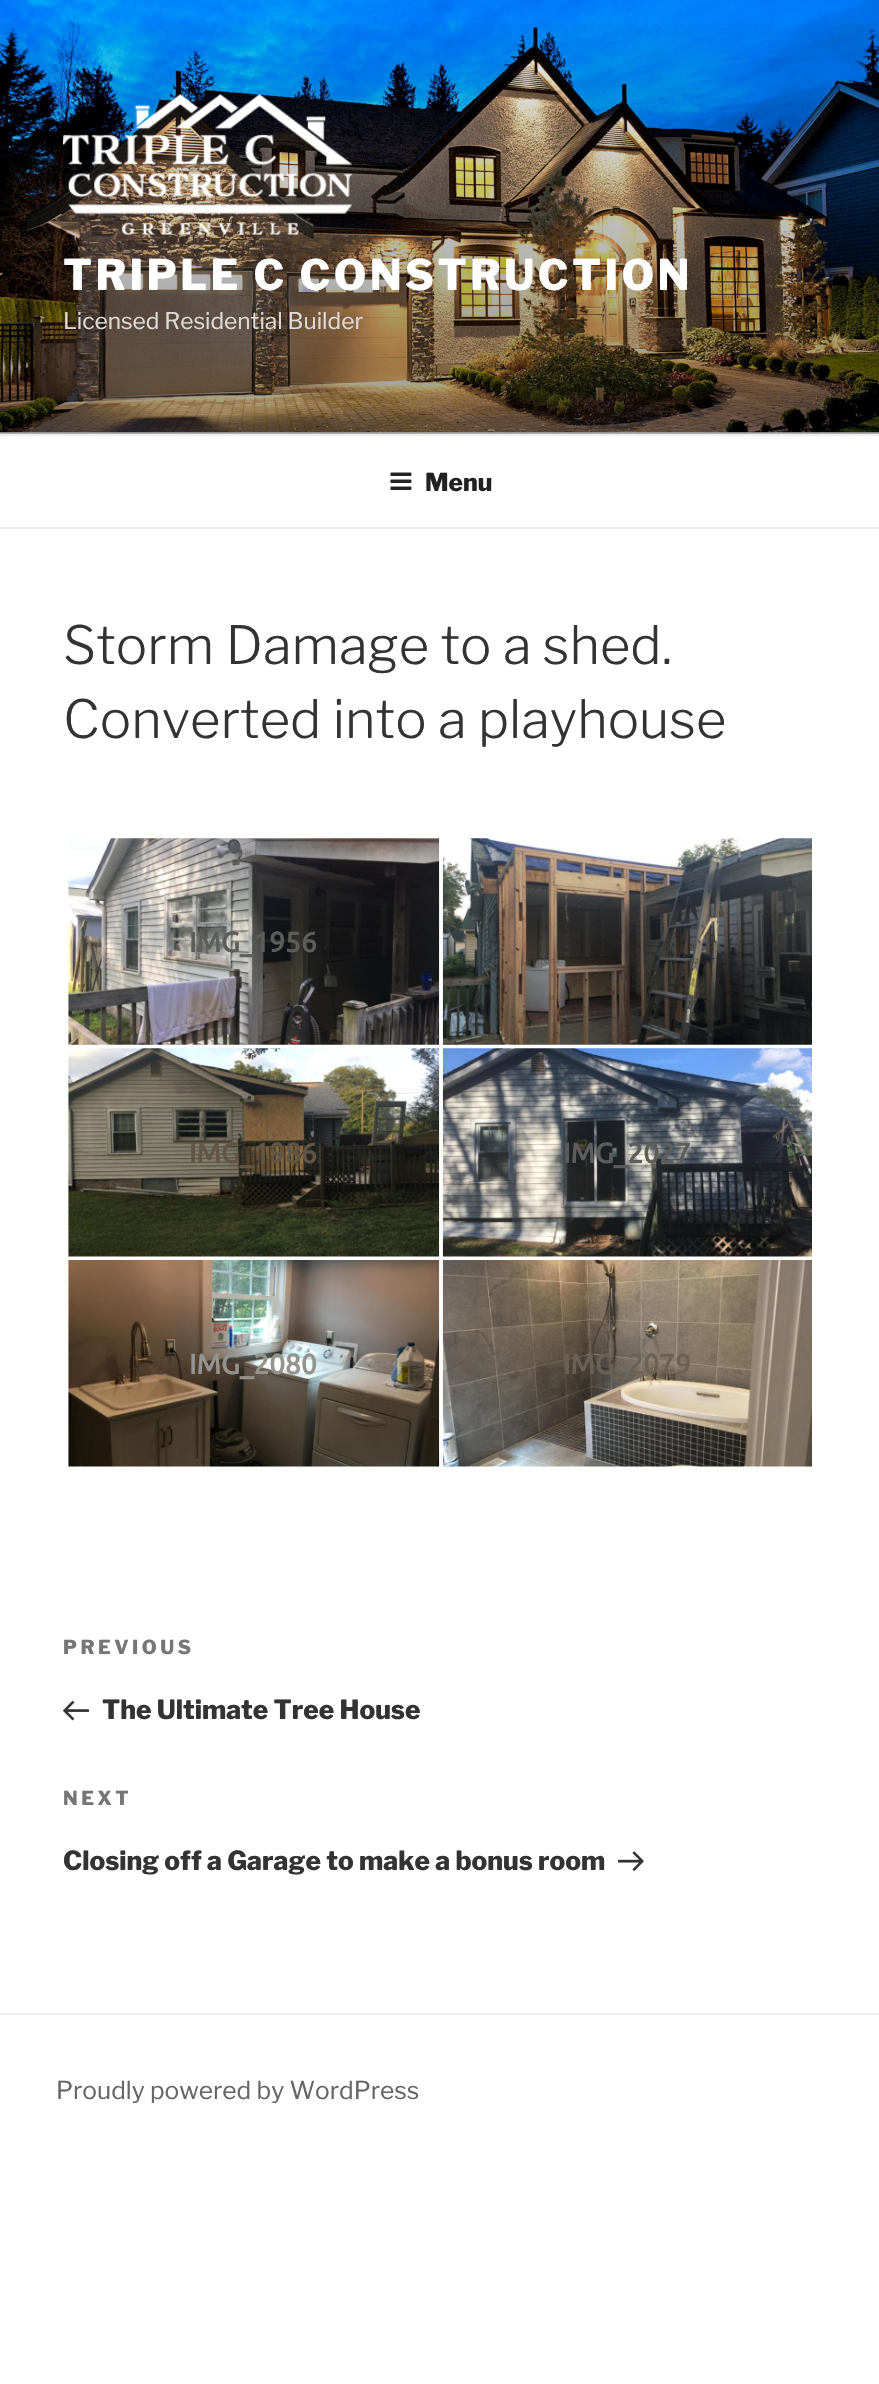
#include "include/core/SkBlurTypes.h"
#include "include/core/SkCanvas.h"
#include "include/core/SkData.h"
#include "include/core/SkFont.h"
#include "include/core/SkFontMgr.h"
#include "include/core/SkImage.h"
#include "include/core/SkMaskFilter.h"
#include "include/core/SkPaint.h"
#include "include/core/SkPathBuilder.h"
#include "include/core/SkTextBlob.h"
#include "include/effects/SkDashPathEffect.h"
#include "include/effects/SkGradientShader.h"
#include "include/utils/SkParsePath.h"

extern sk_sp<SkFontMgr> fontMgr;

void draw(SkCanvas* canvas) {
  SkPaint p;
  p.setAntiAlias(true);
  auto spacedText = [&](const char* s, float x, float y, const SkFont& font, const SkPaint& ink, float letter, float word) {
    std::vector<SkGlyphID> glyphs(font.countText(s, strlen(s), SkTextEncoding::kUTF8));
    std::vector<float> xs(glyphs.size());
    font.textToGlyphs(s, strlen(s), SkTextEncoding::kUTF8, glyphs);
    font.getXPos(glyphs, xs, x);
    float extra = 0;
    for (size_t i = 0; i < glyphs.size(); i++) {
      xs[i] += extra;
      extra += letter + word * (glyphs[i] == font.unicharToGlyph(' '));
    }
    canvas->drawTextBlob(SkTextBlob::MakeFromPosHGlyphs(glyphs, xs, y, font), 0, 0, ink);
  };
  canvas->clear(SK_ColorWHITE);
  p.setColor(SkColorSetRGB(250, 250, 250));
  canvas->drawRect(SkRect::MakeLTRB(0, 432, 879, 434), p);
  canvas->drawImageRect(SkImages::DeferredFromEncodedData(SkData::MakeFromFileName("images/1.png")), SkRect::MakeLTRB(0, 0, 879, 433), SkSamplingOptions());
  {
    const SkColor colors[] = {SkColorSetARGB(0, 0, 0, 0), SkColorSetARGB(77, 0, 0, 0), SkColorSetARGB(77, 0, 0, 0)};
    const float stops[] = {0, 0.75f, 1};
    const SkPoint ends[] = {{440, 0}, {440, 434}};
    p.setShader(SkGradientShader::MakeLinear(ends, colors, stops, 3, SkTileMode::kClamp));
    p.setAlpha(255);
  }
  canvas->drawRect(SkRect::MakeLTRB(0, 23, 879, 434), p);
  canvas->drawImageRect(SkImages::DeferredFromEncodedData(SkData::MakeFromFileName("images/2.png")), SkRect::MakeLTRB(63, 94, 352, 235), SkSamplingOptions());
  p.setShader(nullptr);
  p.setColor(SkColorSetRGB(238, 238, 238));
  canvas->drawRect(SkRect::MakeLTRB(0, 434, 879, 436), p);
  canvas->drawRect(SkRect::MakeLTRB(0, 527, 879, 529), p);
  canvas->drawImageRect(SkImages::DeferredFromEncodedData(SkData::MakeFromFileName("images/3.png")), SkRect::MakeLTRB(390, 472, 412, 490), SkSamplingOptions());
  canvas->drawImageRect(SkImages::DeferredFromEncodedData(SkData::MakeFromFileName("images/4.png")), SkRect::MakeLTRB(68, 838, 440, 1045), SkSamplingOptions());
  canvas->drawImageRect(SkImages::DeferredFromEncodedData(SkData::MakeFromFileName("images/5.png")), SkRect::MakeLTRB(442, 838, 812, 1045), SkSamplingOptions());
  canvas->drawImageRect(SkImages::DeferredFromEncodedData(SkData::MakeFromFileName("images/6.png")), SkRect::MakeLTRB(68, 1048, 440, 1257), SkSamplingOptions());
  canvas->drawImageRect(SkImages::DeferredFromEncodedData(SkData::MakeFromFileName("images/7.png")), SkRect::MakeLTRB(442, 1048, 812, 1257), SkSamplingOptions());
  canvas->drawImageRect(SkImages::DeferredFromEncodedData(SkData::MakeFromFileName("images/8.png")), SkRect::MakeLTRB(68, 1260, 440, 1467), SkSamplingOptions());
  canvas->drawImageRect(SkImages::DeferredFromEncodedData(SkData::MakeFromFileName("images/9.png")), SkRect::MakeLTRB(442, 1260, 812, 1467), SkSamplingOptions());
  canvas->drawImageRect(SkImages::DeferredFromEncodedData(SkData::MakeFromFileName("images/10.png")), SkRect::MakeLTRB(63, 1700, 89, 1721), SkSamplingOptions());
  canvas->drawImageRect(SkImages::DeferredFromEncodedData(SkData::MakeFromFileName("images/11.png")), SkRect::MakeLTRB(618, 1851, 644, 1871), SkSamplingOptions());
  canvas->drawRect(SkRect::MakeLTRB(0, 2013, 879, 2015), p);
  SkFont font1(fontMgr->matchFamilyStyle("Libre Franklin", SkFontStyle(800, SkFontStyle::kNormal_Width, SkFontStyle::kUpright_Slant)), 42);
  font1.setSubpixel(true);
  p.setColor(SK_ColorWHITE);
  spacedText("TRIPLE C CONSTRUCTION", 63, 290, font1, p, 3.4f, 0);
  SkFont font2(fontMgr->matchFamilyStyle("Libre Franklin", SkFontStyle::Normal()), 22.75f);
  font2.setSubpixel(true);
  p.setColor(SkColorSetRGB(223, 219, 216));
  canvas->drawString("Licensed Residential Builder", 63, 329, font2, p);
  SkFont font3(fontMgr->matchFamilyStyle("Libre Franklin", SkFontStyle(800, SkFontStyle::kNormal_Width, SkFontStyle::kUpright_Slant)), 24.5f);
  font3.setSubpixel(true);
  p.setColor(SkColorSetRGB(34, 34, 34));
  canvas->drawString("Menu", 425, 491, font3, p);
  SkFont font4(fontMgr->matchFamilyStyle("Libre Franklin", SkFontStyle(300, SkFontStyle::kNormal_Width, SkFontStyle::kUpright_Slant)), 52.5f);
  font4.setSubpixel(true);
  p.setColor(SkColorSetRGB(51, 51, 51));
  canvas->drawString("Storm Damage to a shed.", 63, 664, font4, p);
  canvas->drawString("Converted into a playhouse", 63, 738, font4, p);
  SkFont font5(fontMgr->matchFamilyStyle("Ubuntu", SkFontStyle::Bold()), 28);
  font5.setSubpixel(true);
  p.setColor(SkColorSetRGB(93, 94, 92));
  canvas->drawString("IMG_1956", 189, 952, font5, p);
  p.setColor(SkColorSetRGB(96, 86, 67));
  canvas->drawString("IMG_1986", 189, 1163, font5, p);
  p.setColor(SkColorSetRGB(93, 94, 92));
  canvas->drawString("IMG_2027", 563, 1163, font5, p);
  p.setColor(SkColorSetRGB(148, 147, 141));
  canvas->drawString("IMG_2080", 189, 1374, font5, p);
  p.setColor(SkColorSetRGB(107, 97, 85));
  canvas->drawString("IMG_2079", 563, 1374, font5, p);
  SkFont font6(fontMgr->matchFamilyStyle("Libre Franklin", SkFontStyle(800, SkFontStyle::kNormal_Width, SkFontStyle::kUpright_Slant)), 19.25f);
  font6.setSubpixel(true);
  p.setColor(SkColorSetRGB(118, 118, 118));
  spacedText("PREVIOUS", 63, 1654, font6, p, 3.5f, 0);
  SkFont font7(fontMgr->matchFamilyStyle("Libre Franklin", SkFontStyle(800, SkFontStyle::kNormal_Width, SkFontStyle::kUpright_Slant)), 26.25f);
  font7.setSubpixel(true);
  p.setColor(SkColorSetRGB(51, 51, 51));
  canvas->drawString("The Ultimate Tree House", 102, 1719, font7, p);
  p.setColor(SkColorSetRGB(118, 118, 118));
  spacedText("NEXT", 63, 1805, font6, p, 3.5f, 0);
  p.setColor(SkColorSetRGB(51, 51, 51));
  canvas->drawString("Closing off a Garage to make a bonus room", 63, 1870, font7, p);
  SkFont font8(fontMgr->matchFamilyStyle("Libre Franklin", SkFontStyle::Normal()), 24.5f);
  font8.setSubpixel(true);
  p.setColor(SkColorSetRGB(102, 102, 102));
  canvas->drawString("Proudly powered by WordPress", 56, 2099, font8, p);
}
